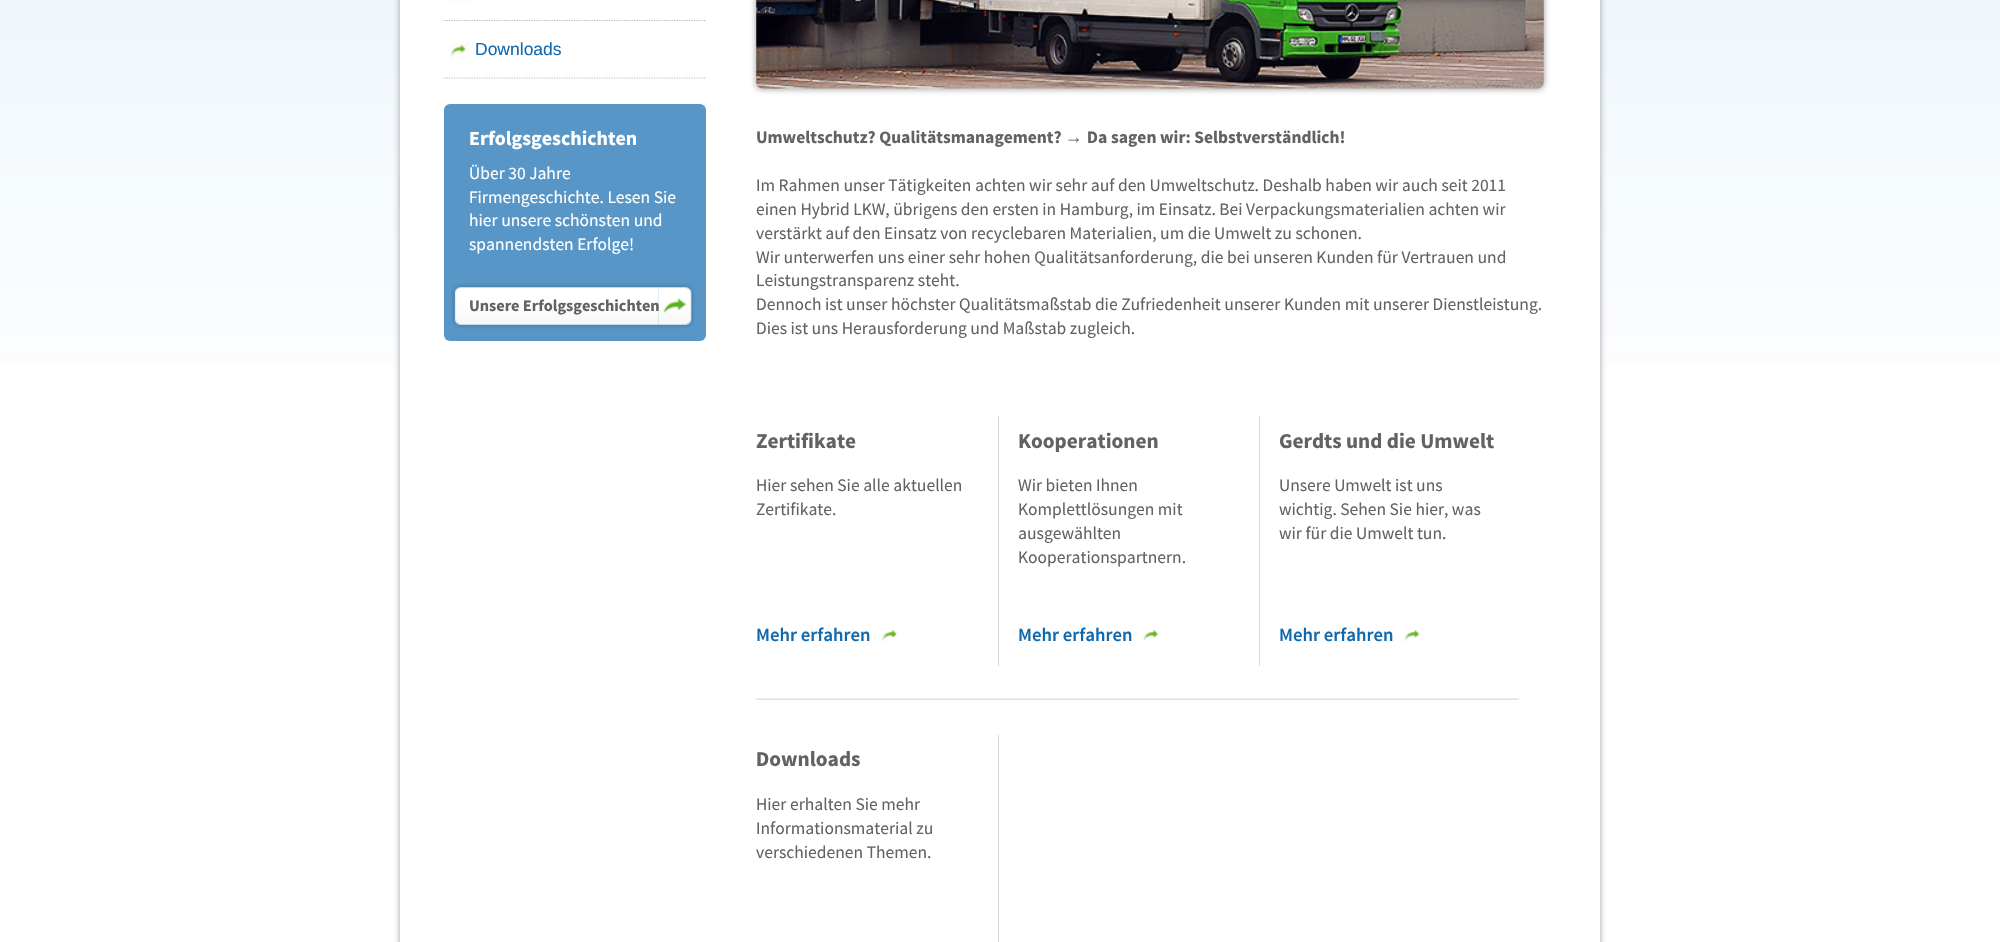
#include "include/core/SkBlurTypes.h"
#include "include/core/SkCanvas.h"
#include "include/core/SkData.h"
#include "include/core/SkFont.h"
#include "include/core/SkFontMgr.h"
#include "include/core/SkImage.h"
#include "include/core/SkMaskFilter.h"
#include "include/core/SkPaint.h"
#include "include/core/SkPathBuilder.h"
#include "include/core/SkTextBlob.h"
#include "include/effects/SkDashPathEffect.h"
#include "include/effects/SkGradientShader.h"
#include "include/utils/SkParsePath.h"

extern sk_sp<SkFontMgr> fontMgr;

void draw(SkCanvas* canvas) {
  SkPaint p;
  p.setAntiAlias(true);
  canvas->clear(SK_ColorWHITE);
  canvas->drawImageRect(SkImages::DeferredFromEncodedData(SkData::MakeFromFileName("images/1.png")), SkRect::MakeLTRB(0, 0, 2000, 362), SkSamplingOptions());
  p.setColor(SkColorSetRGB(158, 158, 158));
  p.setMaskFilter(SkMaskFilter::MakeBlur(kNormal_SkBlurStyle, 3));
  canvas->drawRoundRect(SkRect::MakeLTRB(400, -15, 1600, 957), 6, 6, p);
  p.setMaskFilter(nullptr);
  p.setColor(SK_ColorWHITE);
  canvas->drawRect(SkRect::MakeLTRB(400, 0, 1600, 942), p);
  p.setStyle(SkPaint::kStroke_Style);
  p.setStrokeWidth(1.2f);
  p.setColor(SkColorSetRGB(178, 178, 178));
  p.setPathEffect(SkDashPathEffect::Make({{1.25f, 1.25f}}, 0));
  canvas->drawPath(SkPathBuilder().moveTo(444, 20.5f).lineTo(706, 20.5f).detach(), p);
  p.setPathEffect(nullptr);
  canvas->drawImageRect(SkImages::DeferredFromEncodedData(SkData::MakeFromFileName("images/2.png")), SkRect::MakeLTRB(450, 0, 705, 20), SkSamplingOptions());
  p.setPathEffect(SkDashPathEffect::Make({{1.25f, 1.25f}}, 0));
  canvas->drawPath(SkPathBuilder().moveTo(444, 78).lineTo(706, 78).detach(), p);
  p.setPathEffect(nullptr);
  canvas->drawImageRect(SkImages::DeferredFromEncodedData(SkData::MakeFromFileName("images/3.png")), SkRect::MakeLTRB(450, 21, 705, 78), SkSamplingOptions());
  p.setStyle(SkPaint::kFill_Style);
  p.setColor(SkColorSetRGB(87, 150, 198));
  canvas->drawRoundRect(SkRect::MakeLTRB(444, 104, 706, 341), 6, 6, p);
  canvas->drawImageRect(SkImages::DeferredFromEncodedData(SkData::MakeFromFileName("images/4.png")), SkRect::MakeLTRB(658, 283, 695, 329), SkSamplingOptions());
  canvas->drawImageRect(SkImages::DeferredFromEncodedData(SkData::MakeFromFileName("images/5.png")), SkRect::MakeLTRB(451, 283, 659, 329), SkSamplingOptions());
  p.setColor(SkColorSetRGB(158, 158, 158));
  p.setMaskFilter(SkMaskFilter::MakeBlur(kNormal_SkBlurStyle, 3));
  canvas->drawRoundRect(SkRect::MakeLTRB(756, -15, 1544, 89), 6, 6, p);
  p.setMaskFilter(nullptr);
  canvas->drawImageRect(SkImages::DeferredFromEncodedData(SkData::MakeFromFileName("images/6.png")), SkRect::MakeLTRB(756, 0, 1544, 89), SkSamplingOptions());
  canvas->drawImageRect(SkImages::DeferredFromEncodedData(SkData::MakeFromFileName("images/7.png")), SkRect::MakeLTRB(756, 698, 1519, 700), SkSamplingOptions());
  p.setColor(SkColorSetRGB(216, 215, 216));
  canvas->drawRect(SkRect::MakeLTRB(998, 416, 999, 666), p);
  canvas->drawImageRect(SkImages::DeferredFromEncodedData(SkData::MakeFromFileName("images/8.png")), SkRect::MakeLTRB(881, 629, 897, 642), SkSamplingOptions());
  canvas->drawRect(SkRect::MakeLTRB(1259, 416, 1260, 666), p);
  canvas->drawImageRect(SkImages::DeferredFromEncodedData(SkData::MakeFromFileName("images/9.png")), SkRect::MakeLTRB(1143, 629, 1158, 642), SkSamplingOptions());
  canvas->drawImageRect(SkImages::DeferredFromEncodedData(SkData::MakeFromFileName("images/10.png")), SkRect::MakeLTRB(1404, 629, 1419, 642), SkSamplingOptions());
  canvas->drawRect(SkRect::MakeLTRB(998, 735, 999, 942), p);
  SkFont font1(fontMgr->matchFamilyStyle("Liberation Sans", SkFontStyle::Normal()), 17.5f);
  font1.setSubpixel(true);
  p.setColor(SkColorSetRGB(15, 105, 174));
  canvas->drawString("Downloads", 475, 55, font1, p);
  SkFont font2(fontMgr->matchFamilyStyle("Source Sans Pro", SkFontStyle::Bold()), 20);
  font2.setSubpixel(true);
  p.setColor(SK_ColorWHITE);
  canvas->drawString("Erfolgsgeschichten", 469, 145, font2, p);
  SkFont font3(fontMgr->matchFamilyStyle("Source Sans Pro", SkFontStyle::Normal()), 17.5f);
  font3.setSubpixel(true);
  canvas->drawString("Über 30 Jahre", 469, 179, font3, p);
  canvas->drawString("Firmengeschichte. Lesen Sie", 469, 203, font3, p);
  canvas->drawString("hier unsere schönsten und", 469, 226, font3, p);
  canvas->drawString("spannendsten Erfolge!", 469, 250, font3, p);
  SkFont font4(fontMgr->matchFamilyStyle("Source Sans Pro", SkFontStyle::Bold()), 16.25f);
  font4.setSubpixel(true);
  p.setColor(SkColorSetRGB(98, 98, 98));
  canvas->drawString("Unsere Erfolgsgeschichten", 469, 311, font4, p);
  SkFont font5(fontMgr->matchFamilyStyle("Source Sans Pro", SkFontStyle::Bold()), 17.5f);
  font5.setSubpixel(true);
  canvas->drawString("Umweltschutz? Qualitätsmanagement?", 756, 143, font5, p);
  canvas->drawString("→", 1065, 143, font1, p);
  canvas->drawString("Da sagen wir: Selbstverständlich!", 1087, 143, font5, p);
  canvas->drawString("Im Rahmen unser Tätigkeiten achten wir sehr auf den Umweltschutz. Deshalb haben wir auch seit 2011", 756, 191, font3, p);
  canvas->drawString("einen Hybrid LKW, übrigens den ersten in Hamburg, im Einsatz. Bei Verpackungsmaterialien achten wir", 756, 215, font3, p);
  canvas->drawString("verstärkt auf den Einsatz von recyclebaren Materialien, um die Umwelt zu schonen.", 756, 239, font3, p);
  canvas->drawString("Wir unterwerfen uns einer sehr hohen Qualitätsanforderung, die bei unseren Kunden für Vertrauen und", 756, 263, font3, p);
  canvas->drawString("Leistungstransparenz steht.", 756, 286, font3, p);
  canvas->drawString("Dennoch ist unser höchster Qualitätsmaßstab die Zufriedenheit unserer Kunden mit unserer Dienstleistung.", 756, 310, font3, p);
  canvas->drawString("Dies ist uns Herausforderung und Maßstab zugleich.", 756, 334, font3, p);
  SkFont font6(fontMgr->matchFamilyStyle("Source Sans Pro", SkFontStyle::Bold()), 21.25f);
  font6.setSubpixel(true);
  canvas->drawString("Zertifikate", 756, 448, font6, p);
  canvas->drawString("Hier sehen Sie alle aktuellen", 756, 491, font3, p);
  canvas->drawString("Zertifikate.", 756, 515, font3, p);
  SkFont font7(fontMgr->matchFamilyStyle("Source Sans Pro", SkFontStyle(600, SkFontStyle::kNormal_Width, SkFontStyle::kUpright_Slant)), 18.75f);
  font7.setSubpixel(true);
  p.setColor(SkColorSetRGB(15, 105, 174));
  canvas->drawString("Mehr erfahren", 756, 641, font7, p);
  p.setColor(SkColorSetRGB(98, 98, 98));
  canvas->drawString("Kooperationen", 1018, 448, font6, p);
  canvas->drawString("Wir bieten Ihnen", 1018, 491, font3, p);
  canvas->drawString("Komplettlösungen mit", 1018, 515, font3, p);
  canvas->drawString("ausgewählten", 1018, 539, font3, p);
  canvas->drawString("Kooperationspartnern.", 1018, 563, font3, p);
  p.setColor(SkColorSetRGB(15, 105, 174));
  canvas->drawString("Mehr erfahren", 1018, 641, font7, p);
  p.setColor(SkColorSetRGB(98, 98, 98));
  canvas->drawString("Gerdts und die Umwelt", 1279, 448, font6, p);
  canvas->drawString("Unsere Umwelt ist uns", 1279, 491, font3, p);
  canvas->drawString("wichtig. Sehen Sie hier, was", 1279, 515, font3, p);
  canvas->drawString("wir für die Umwelt tun.", 1279, 539, font3, p);
  p.setColor(SkColorSetRGB(15, 105, 174));
  canvas->drawString("Mehr erfahren", 1279, 641, font7, p);
  p.setColor(SkColorSetRGB(98, 98, 98));
  canvas->drawString("Downloads", 756, 766, font6, p);
  canvas->drawString("Hier erhalten Sie mehr", 756, 810, font3, p);
  canvas->drawString("Informationsmaterial zu", 756, 834, font3, p);
  canvas->drawString("verschiedenen Themen.", 756, 858, font3, p);
}
